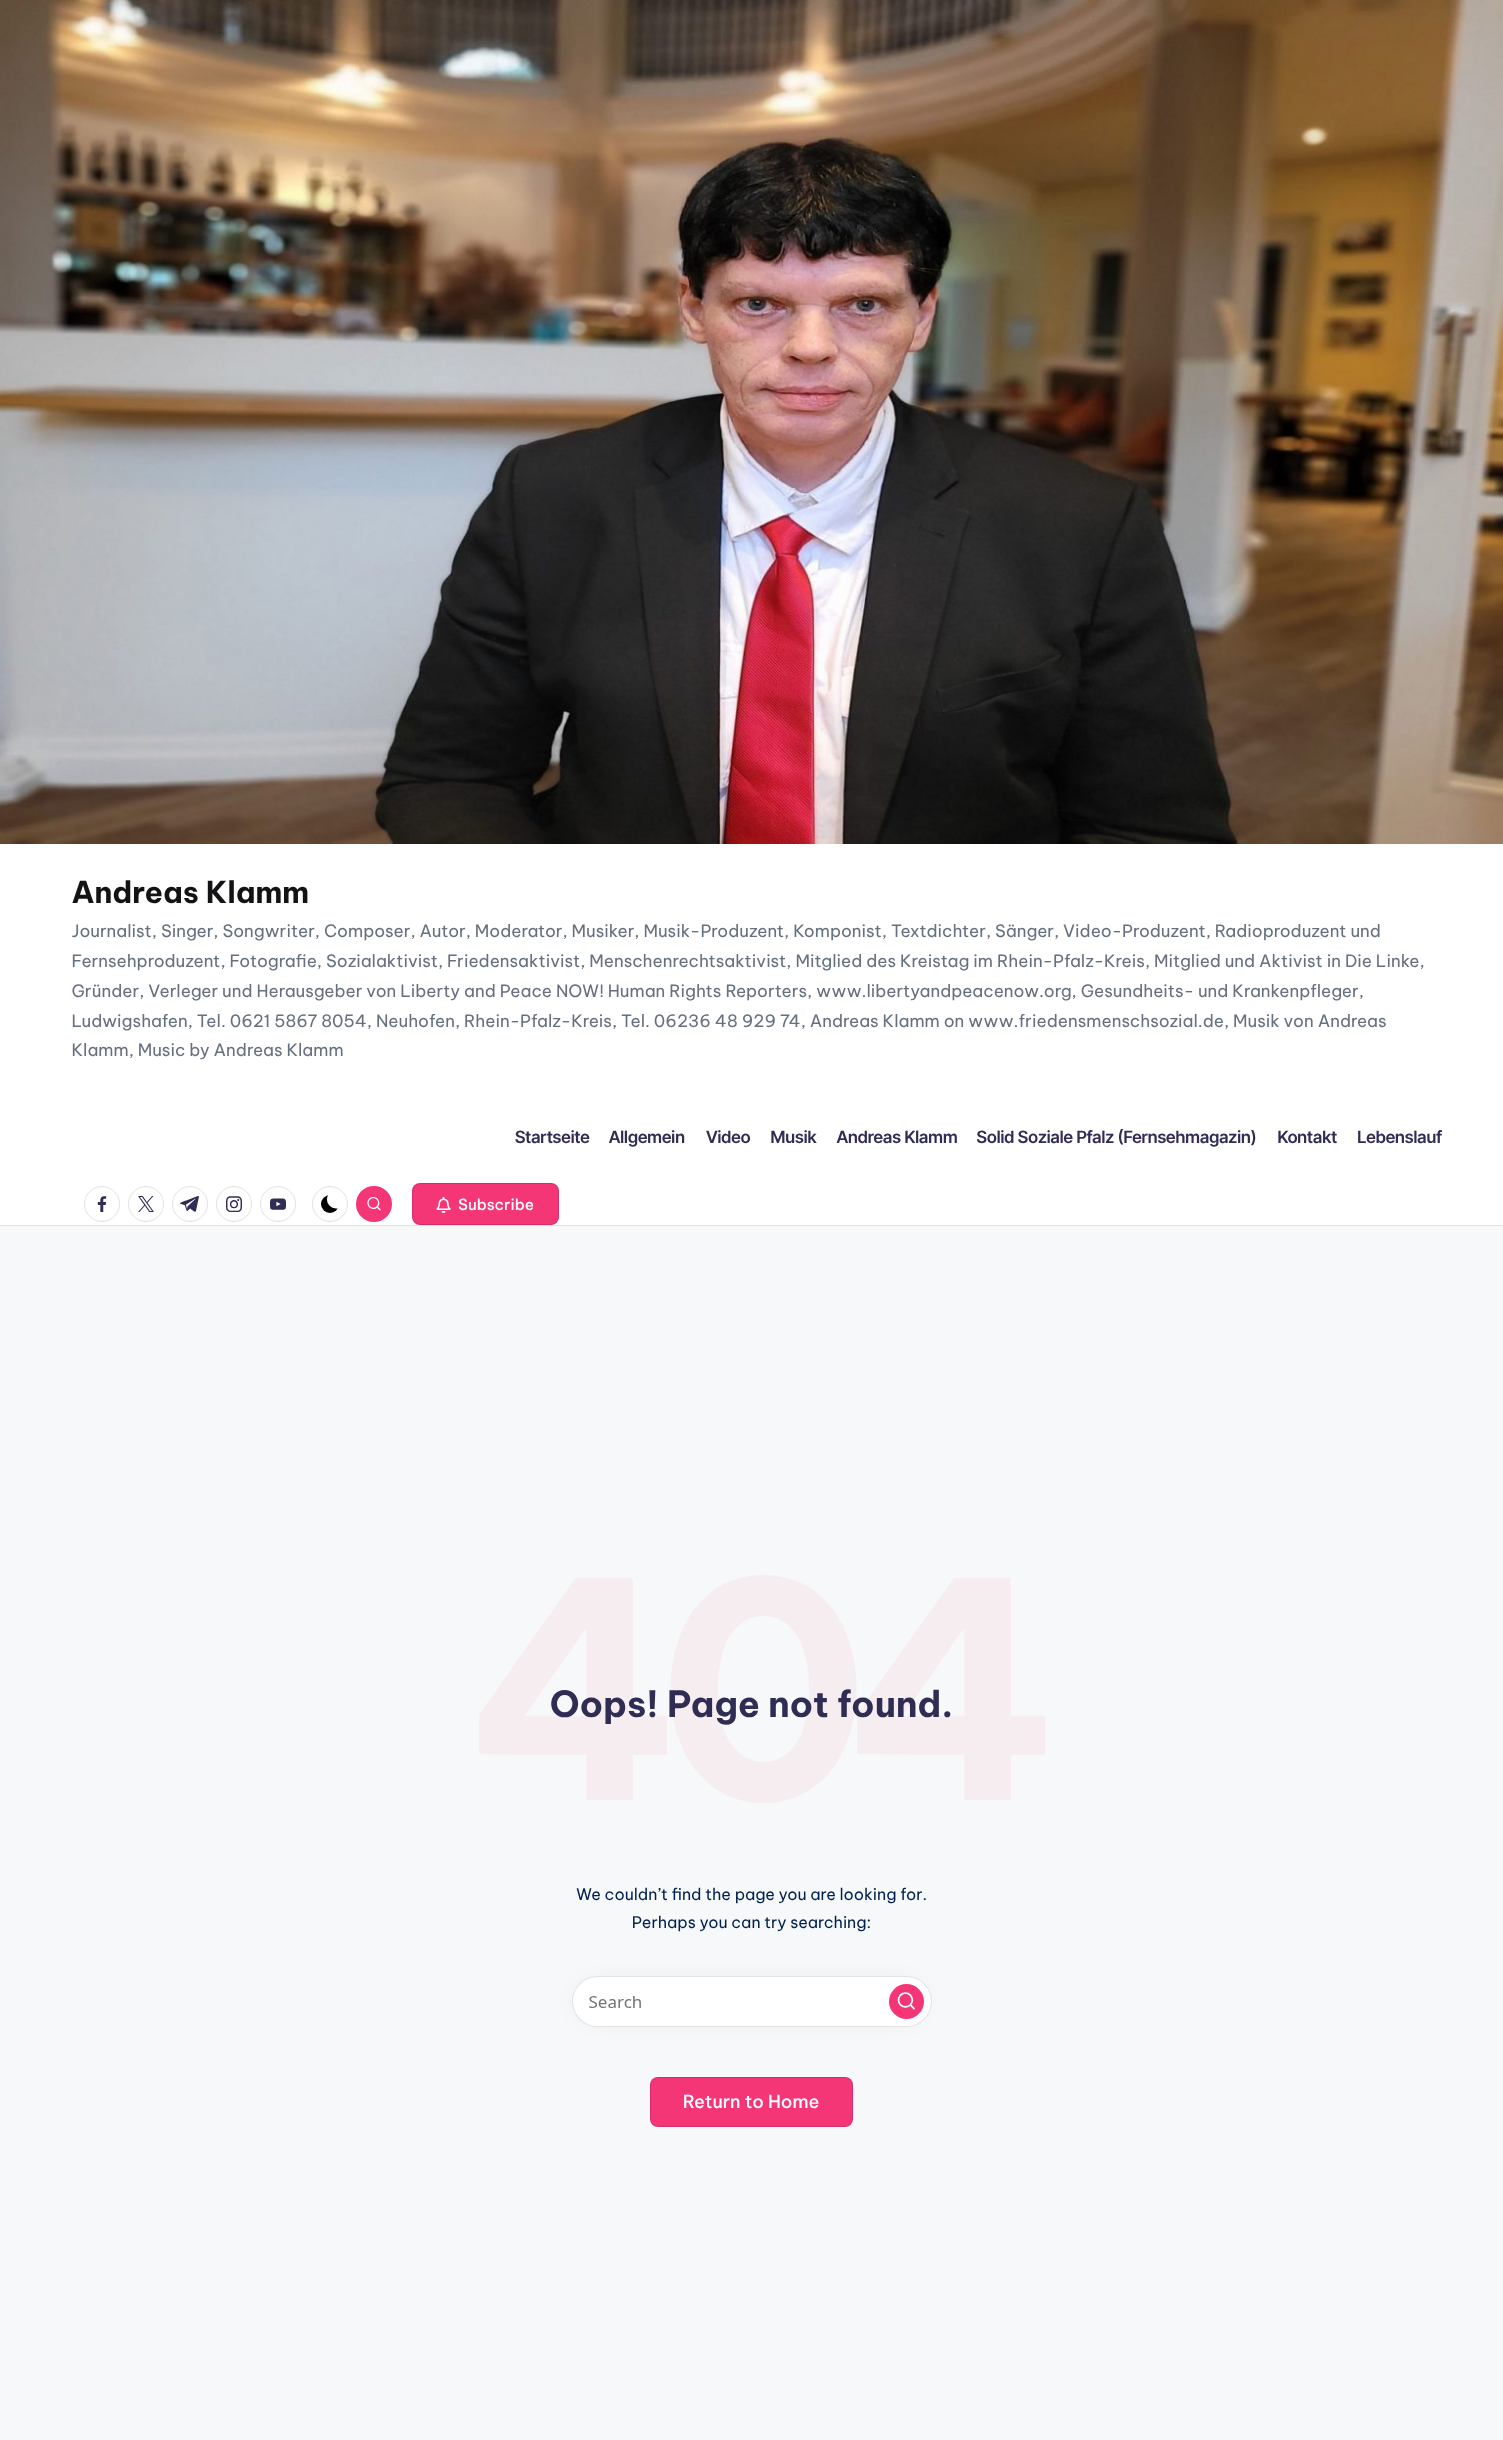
#include "include/core/SkBlurTypes.h"
#include "include/core/SkCanvas.h"
#include "include/core/SkData.h"
#include "include/core/SkFont.h"
#include "include/core/SkFontMgr.h"
#include "include/core/SkImage.h"
#include "include/core/SkMaskFilter.h"
#include "include/core/SkPaint.h"
#include "include/core/SkPathBuilder.h"
#include "include/core/SkTextBlob.h"
#include "include/effects/SkDashPathEffect.h"
#include "include/effects/SkGradientShader.h"
#include "include/utils/SkParsePath.h"

extern sk_sp<SkFontMgr> fontMgr;

void draw(SkCanvas* canvas) {
  SkPaint p;
  p.setAntiAlias(true);
  canvas->clear(SK_ColorWHITE);
  canvas->drawImageRect(SkImages::DeferredFromEncodedData(SkData::MakeFromFileName("images/1.png")), SkRect::MakeLTRB(0, 0, 1503, 2440), SkSamplingOptions());
}
